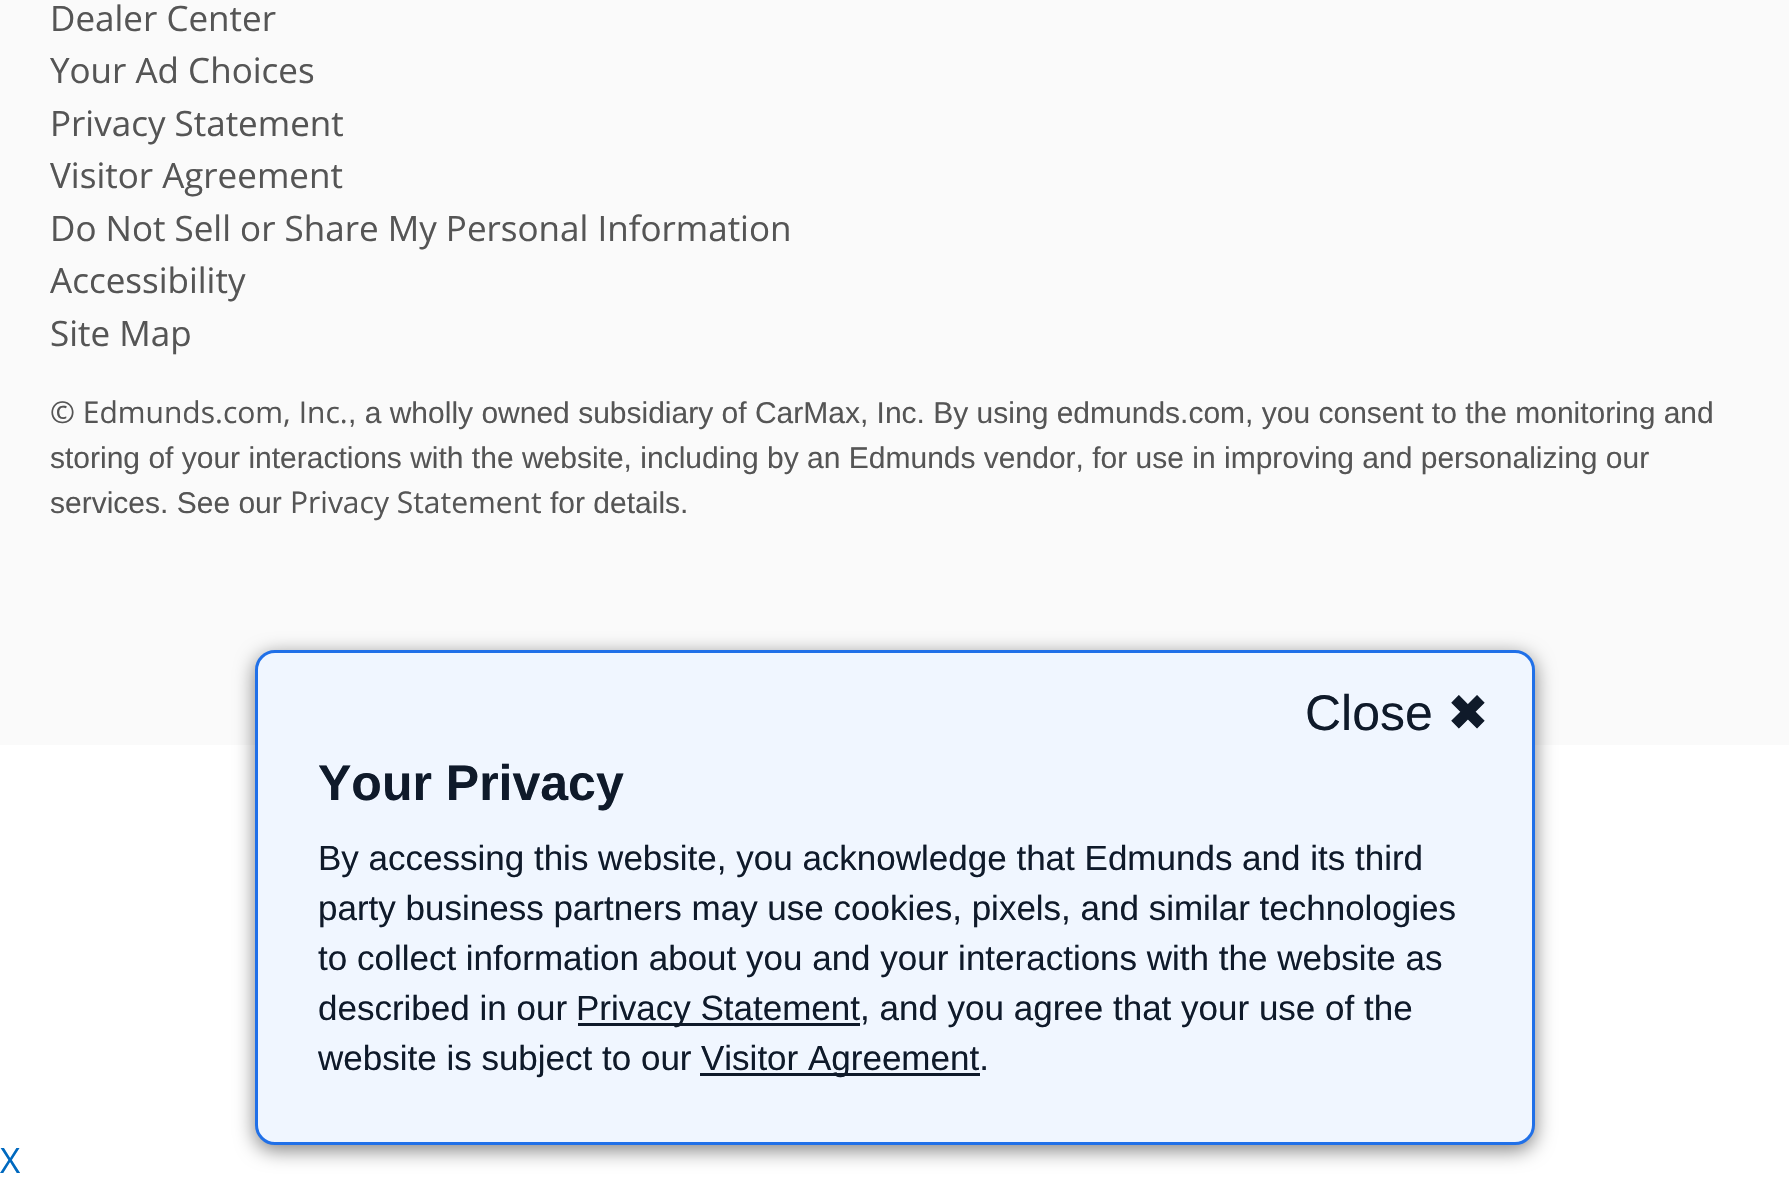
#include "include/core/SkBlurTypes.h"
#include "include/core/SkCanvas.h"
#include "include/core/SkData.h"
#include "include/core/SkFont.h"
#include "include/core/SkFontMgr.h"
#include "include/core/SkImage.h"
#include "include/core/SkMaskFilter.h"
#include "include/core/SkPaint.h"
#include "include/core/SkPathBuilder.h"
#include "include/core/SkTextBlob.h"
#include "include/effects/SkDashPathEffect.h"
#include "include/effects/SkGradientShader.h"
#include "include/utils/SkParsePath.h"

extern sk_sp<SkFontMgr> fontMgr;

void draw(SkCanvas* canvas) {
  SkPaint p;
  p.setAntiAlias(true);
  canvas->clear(SK_ColorWHITE);
  p.setColor(SkColorSetRGB(250, 250, 250));
  canvas->drawRect(SkRect::MakeLTRB(0, 0, 1789, 745), p);
  p.setColor(SkColorSetARGB(128, 0, 0, 0));
  p.setMaskFilter(SkMaskFilter::MakeBlur(kNormal_SkBlurStyle, 10));
  canvas->drawRoundRect(SkRect::MakeLTRB(255, 655, 1535, 1150), 20, 20, p);
  p.setMaskFilter(nullptr);
  p.setColor(SkColorSetRGB(240, 246, 255));
  canvas->drawRoundRect(SkRect::MakeLTRB(256.5f, 651.5f, 1533.5f, 1143.5f), 18.5f, 18.5f, p);
  p.setStyle(SkPaint::kStroke_Style);
  p.setStrokeWidth(3);
  p.setColor(SkColorSetRGB(32, 112, 232));
  canvas->drawRoundRect(SkRect::MakeLTRB(256.5f, 651.5f, 1533.5f, 1143.5f), 18.5f, 18.5f, p);
  p.setStyle(SkPaint::kFill_Style);
  p.setColor(SkColorSetRGB(15, 26, 42));
  canvas->drawRect(SkRect::MakeLTRB(578, 1023, 860, 1026), p);
  canvas->drawRect(SkRect::MakeLTRB(700, 1073, 980, 1076), p);
  SkFont font1(fontMgr->matchFamilyStyle("Open Sans", SkFontStyle::Normal()), 35);
  font1.setSubpixel(true);
  p.setColor(SkColorSetRGB(85, 85, 85));
  canvas->drawString("Dealer Center", 50, 31, font1, p);
  canvas->drawString("Your Ad Choices", 50, 83, font1, p);
  canvas->drawString("Privacy Statement", 50, 136, font1, p);
  canvas->drawString("Visitor Agreement", 50, 188, font1, p);
  canvas->drawString("Do Not Sell or Share My Personal Information", 50, 241, font1, p);
  canvas->drawString("Accessibility", 50, 293, font1, p);
  canvas->drawString("Site Map", 50, 346, font1, p);
  SkFont font2(fontMgr->matchFamilyStyle("Open Sans", SkFontStyle::Normal()), 30);
  font2.setSubpixel(true);
  canvas->drawString("© Edmunds.com, Inc.", 50, 423, font2, p);
  SkFont font3(fontMgr->matchFamilyStyle("Liberation Sans", SkFontStyle::Normal()), 30);
  font3.setSubpixel(true);
  canvas->drawString(", a wholly owned subsidiary of CarMax, Inc. By using edmunds.com, you consent to the monitoring and", 348, 423, font3, p);
  canvas->drawString("storing of your interactions with the website, including by an Edmunds vendor, for use in improving and personalizing our", 50, 468, font3, p);
  canvas->drawString("services. See our", 50, 513, font3, p);
  canvas->drawString("Privacy Statement", 290, 513, font2, p);
  canvas->drawString("for details.", 550, 513, font3, p);
  SkFont font4(fontMgr->matchFamilyStyle("Liberation Sans", SkFontStyle::Normal()), 50);
  font4.setSubpixel(true);
  p.setColor(SkColorSetRGB(15, 26, 42));
  canvas->drawString("Close", 1305, 730, font4, p);
  SkFont font5(fontMgr->matchFamilyStyle("DejaVu Sans", SkFontStyle::Normal()), 50);
  font5.setSubpixel(true);
  canvas->drawString("✖", 1447, 730, font5, p);
  SkFont font6(fontMgr->matchFamilyStyle("Liberation Sans", SkFontStyle::Bold()), 50);
  font6.setSubpixel(true);
  canvas->drawString("Your Privacy", 318, 800, font6, p);
  SkFont font7(fontMgr->matchFamilyStyle("Liberation Sans", SkFontStyle::Normal()), 35);
  font7.setSubpixel(true);
  canvas->drawString("By accessing this website, you acknowledge that Edmunds and its third", 318, 870, font7, p);
  canvas->drawString("party business partners may use cookies, pixels, and similar technologies", 318, 920, font7, p);
  canvas->drawString("to collect information about you and your interactions with the website as", 318, 970, font7, p);
  canvas->drawString("described in our", 318, 1020, font7, p);
  canvas->drawString("Privacy Statement, and you agree that your use of the", 576, 1020, font7, p);
  canvas->drawString("website is subject to our", 318, 1070, font7, p);
  canvas->drawString("Visitor Agreement.", 701, 1070, font7, p);
  p.setColor(SkColorSetRGB(0, 105, 191));
  canvas->drawString("X", 0, 1173, font1, p);
}
